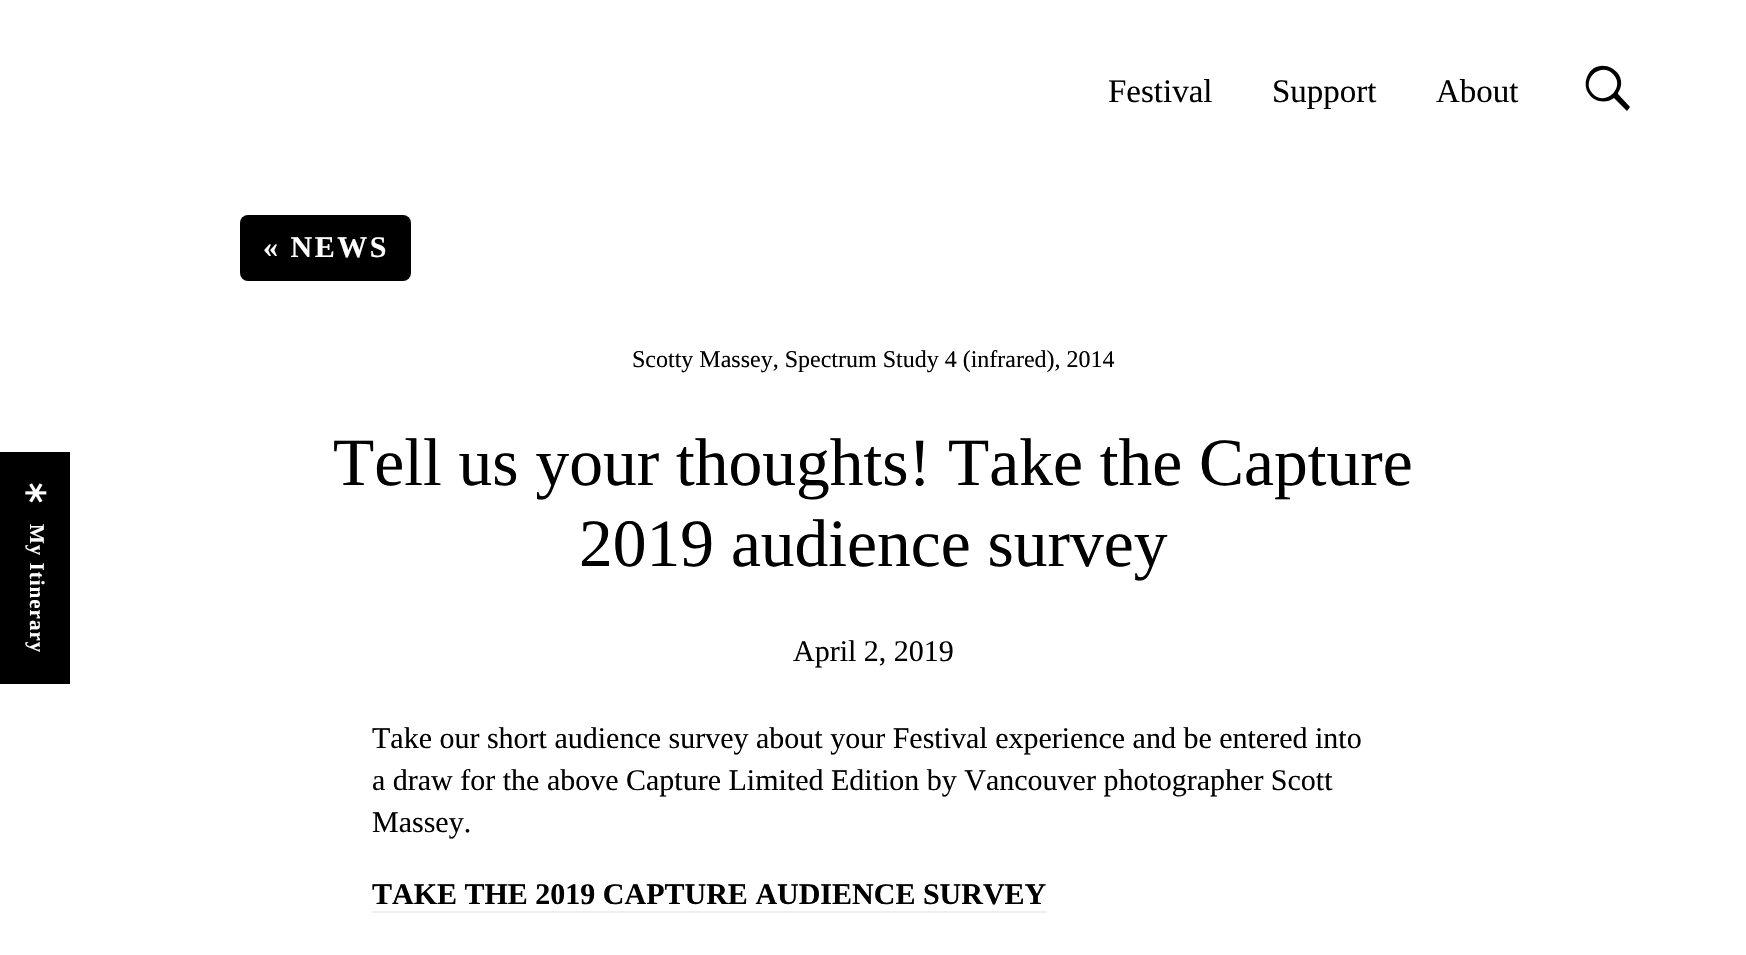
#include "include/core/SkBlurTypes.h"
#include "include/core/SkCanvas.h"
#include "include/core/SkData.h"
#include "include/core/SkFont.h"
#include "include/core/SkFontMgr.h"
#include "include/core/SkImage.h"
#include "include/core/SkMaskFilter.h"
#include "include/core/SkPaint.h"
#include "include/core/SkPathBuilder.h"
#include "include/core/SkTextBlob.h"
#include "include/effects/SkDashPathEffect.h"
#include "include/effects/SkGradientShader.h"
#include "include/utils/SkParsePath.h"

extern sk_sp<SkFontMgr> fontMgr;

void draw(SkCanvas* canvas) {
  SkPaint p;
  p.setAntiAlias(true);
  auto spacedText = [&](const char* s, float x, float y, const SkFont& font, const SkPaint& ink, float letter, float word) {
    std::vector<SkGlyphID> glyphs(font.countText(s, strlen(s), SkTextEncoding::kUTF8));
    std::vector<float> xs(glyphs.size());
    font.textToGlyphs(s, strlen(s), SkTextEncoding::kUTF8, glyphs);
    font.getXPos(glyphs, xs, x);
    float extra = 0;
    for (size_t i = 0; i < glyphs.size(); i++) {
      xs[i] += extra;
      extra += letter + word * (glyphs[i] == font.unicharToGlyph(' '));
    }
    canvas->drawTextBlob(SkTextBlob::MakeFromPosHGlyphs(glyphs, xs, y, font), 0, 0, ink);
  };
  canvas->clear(SK_ColorWHITE);
  p.setColor(SK_ColorBLACK);
  canvas->drawPath(SkPathBuilder().moveTo(1618, 93).lineTo(1618, 94).lineTo(1630, 107).lineTo(1627, 111).lineTo(1614, 98).cubicTo(1606, 104, 1594, 102, 1589, 94).cubicTo(1585, 89, 1585, 82, 1587, 77).cubicTo(1597, 53, 1632, 72, 1618, 93).close().moveTo(1613, 74).cubicTo(1600, 61, 1580, 81, 1593, 94).cubicTo(1606, 107, 1626, 87, 1613, 74).close().detach(), p);
  canvas->drawRect(SkRect::MakeLTRB(0, 452, 70, 684), p);
  canvas->drawImageRect(SkImages::DeferredFromEncodedData(SkData::MakeFromFileName("images/1.png")), SkRect::MakeLTRB(25, 483, 47, 503), SkSamplingOptions());
  canvas->drawRoundRect(SkRect::MakeLTRB(240, 215, 411, 281), 8, 8, p);
  p.setColor(SkColorSetRGB(238, 238, 238));
  canvas->drawRect(SkRect::MakeLTRB(372, 911, 1047, 913), p);
  SkFont font1(fontMgr->matchFamilyStyle("Liberation Serif", SkFontStyle::Normal()), 33);
  font1.setSubpixel(true);
  p.setColor(SK_ColorBLACK);
  canvas->drawString("Festival", 1108, 102, font1, p);
  canvas->drawString("Support", 1272, 102, font1, p);
  canvas->drawString("About", 1436, 102, font1, p);
  SkFont font2(fontMgr->matchFamilyStyle("Liberation Serif", SkFontStyle::Bold()), 21);
  font2.setSubpixel(true);
  p.setColor(SK_ColorWHITE);
  canvas->save();
  canvas->rotate(90, 30, 524);
  spacedText("My Itinerary", 30, 524, font2, p, 1, 0);
  canvas->restore();
  SkFont font3(fontMgr->matchFamilyStyle("Liberation Serif", SkFontStyle::Bold()), 30);
  font3.setSubpixel(true);
  spacedText("« NEWS", 263, 257, font3, p, 2.5f, 0);
  SkFont font4(fontMgr->matchFamilyStyle("Liberation Serif", SkFontStyle::Normal()), 24);
  font4.setSubpixel(true);
  p.setColor(SK_ColorBLACK);
  canvas->drawString("Scotty Massey, Spectrum Study 4 (infrared), 2014", 632, 367, font4, p);
  SkFont font5(fontMgr->matchFamilyStyle("Liberation Serif", SkFontStyle::Normal()), 67.5f);
  font5.setSubpixel(true);
  canvas->drawString("Tell us your thoughts! Take the Capture", 333, 485, font5, p);
  canvas->drawString("2019 audience survey", 579, 566, font5, p);
  SkFont font6(fontMgr->matchFamilyStyle("Liberation Serif", SkFontStyle::Normal()), 30);
  font6.setSubpixel(true);
  canvas->drawString("April 2, 2019", 793, 661, font6, p);
  canvas->drawString("Take our short audience survey about your Festival experience and be entered into", 372, 748, font6, p);
  canvas->drawString("a draw for the above Capture Limited Edition by Vancouver photographer Scott", 372, 790, font6, p);
  canvas->drawString("Massey.", 372, 832, font6, p);
  canvas->drawString("TAKE THE 2019 CAPTURE AUDIENCE SURVEY", 372, 904, font3, p);
}
